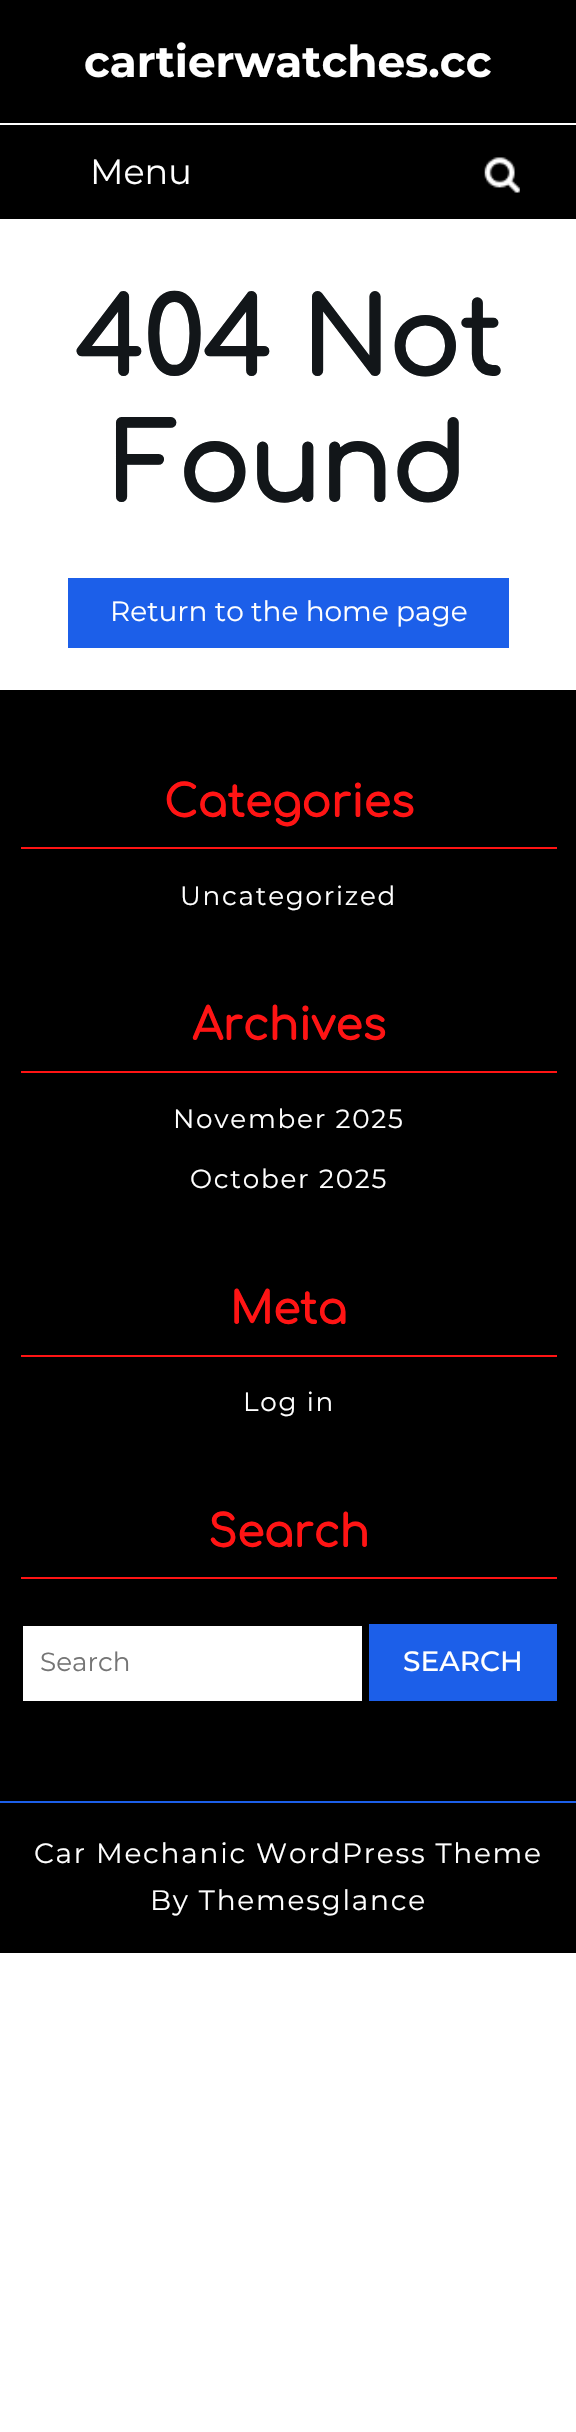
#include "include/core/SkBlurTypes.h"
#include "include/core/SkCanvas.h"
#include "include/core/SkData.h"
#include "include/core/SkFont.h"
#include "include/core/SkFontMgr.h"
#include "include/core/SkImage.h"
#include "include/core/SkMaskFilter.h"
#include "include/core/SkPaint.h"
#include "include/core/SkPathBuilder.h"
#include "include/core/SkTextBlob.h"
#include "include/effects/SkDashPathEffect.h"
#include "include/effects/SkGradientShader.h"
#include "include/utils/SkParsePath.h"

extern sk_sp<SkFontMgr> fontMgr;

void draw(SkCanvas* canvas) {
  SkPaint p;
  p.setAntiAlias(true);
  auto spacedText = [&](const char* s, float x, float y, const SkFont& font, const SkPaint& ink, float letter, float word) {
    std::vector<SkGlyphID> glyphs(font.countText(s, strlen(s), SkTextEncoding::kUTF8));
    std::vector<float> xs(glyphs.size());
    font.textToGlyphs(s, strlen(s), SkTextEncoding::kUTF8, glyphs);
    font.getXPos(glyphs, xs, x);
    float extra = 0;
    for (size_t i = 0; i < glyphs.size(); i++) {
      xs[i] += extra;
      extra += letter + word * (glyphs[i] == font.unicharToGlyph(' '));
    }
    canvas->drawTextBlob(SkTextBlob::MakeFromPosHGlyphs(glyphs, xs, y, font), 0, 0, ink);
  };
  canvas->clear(SK_ColorWHITE);
  p.setColor(SK_ColorBLACK);
  canvas->drawRect(SkRect::MakeLTRB(0, 0, 576, 219), p);
  p.setColor(SK_ColorWHITE);
  canvas->drawRect(SkRect::MakeLTRB(0, 123, 576, 125), p);
  canvas->drawImageRect(SkImages::DeferredFromEncodedData(SkData::MakeFromFileName("images/1.png")), SkRect::MakeLTRB(484, 157, 520, 193), SkSamplingOptions());
  p.setColor(SkColorSetRGB(28, 95, 233));
  canvas->drawRect(SkRect::MakeLTRB(68, 578, 509, 648), p);
  p.setColor(SK_ColorBLACK);
  canvas->drawRect(SkRect::MakeLTRB(0, 690, 576, 1801), p);
  p.setColor(SkColorSetRGB(255, 20, 20));
  canvas->drawRect(SkRect::MakeLTRB(21, 847, 557, 849), p);
  canvas->drawRect(SkRect::MakeLTRB(21, 1071, 557, 1073), p);
  canvas->drawRect(SkRect::MakeLTRB(21, 1355, 557, 1357), p);
  canvas->drawRect(SkRect::MakeLTRB(21, 1577, 557, 1579), p);
  p.setColor(SK_ColorWHITE);
  canvas->drawRect(SkRect::MakeLTRB(23, 1626, 362, 1701), p);
  p.setColor(SkColorSetRGB(28, 95, 233));
  canvas->drawRect(SkRect::MakeLTRB(369, 1624, 557, 1701), p);
  p.setColor(SK_ColorBLACK);
  canvas->drawRect(SkRect::MakeLTRB(0, 1803, 576, 1953), p);
  p.setColor(SkColorSetRGB(28, 95, 233));
  canvas->drawRect(SkRect::MakeLTRB(0, 1801, 576, 1803), p);
  SkFont font1(fontMgr->matchFamilyStyle("Montserrat", SkFontStyle::Bold()), 43.75f);
  font1.setSubpixel(true);
  p.setColor(SK_ColorWHITE);
  canvas->drawString("cartierwatches.cc", 84, 77, font1, p);
  SkFont font2(fontMgr->matchFamilyStyle("Montserrat", SkFontStyle::Normal()), 35);
  font2.setSubpixel(true);
  canvas->drawString("Menu", 90, 184, font2, p);
  SkFont font3(fontMgr->matchFamilyStyle("Comfortaa", SkFontStyle::Bold()), 105);
  font3.setSubpixel(true);
  p.setColor(SkColorSetRGB(18, 22, 25));
  canvas->drawString("404 Not", 75, 376, font3, p);
  canvas->drawString("Found", 112, 502, font3, p);
  SkFont font4(fontMgr->matchFamilyStyle("Montserrat", SkFontStyle::Normal()), 28);
  font4.setSubpixel(true);
  p.setColor(SK_ColorWHITE);
  canvas->drawString("Return to the home page", 110, 621, font4, p);
  SkFont font5(fontMgr->matchFamilyStyle("Comfortaa", SkFontStyle::Bold()), 43.75f);
  font5.setSubpixel(true);
  p.setColor(SkColorSetRGB(255, 20, 20));
  canvas->drawString("Categories", 164, 817, font5, p);
  SkFont font6(fontMgr->matchFamilyStyle("Montserrat", SkFontStyle::Normal()), 26.25f);
  font6.setSubpixel(true);
  p.setColor(SK_ColorWHITE);
  spacedText("Uncategorized", 180, 905, font6, p, 1.75f, 0);
  p.setColor(SkColorSetRGB(255, 20, 20));
  canvas->drawString("Archives", 192, 1040, font5, p);
  p.setColor(SK_ColorWHITE);
  spacedText("November 2025", 173, 1128, font6, p, 1.75f, 0);
  spacedText("October 2025", 190, 1188, font6, p, 1.75f, 0);
  p.setColor(SkColorSetRGB(255, 20, 20));
  canvas->drawString("Meta", 230, 1324, font5, p);
  p.setColor(SK_ColorWHITE);
  spacedText("Log in", 243, 1411, font6, p, 1.75f, 0);
  p.setColor(SkColorSetRGB(255, 20, 20));
  canvas->drawString("Search", 208, 1547, font5, p);
  p.setColor(SkColorSetRGB(117, 117, 117));
  canvas->drawString("Search", 40, 1671, font6, p);
  SkFont font7(fontMgr->matchFamilyStyle("Montserrat", SkFontStyle(500, SkFontStyle::kNormal_Width, SkFontStyle::kUpright_Slant)), 28);
  font7.setSubpixel(true);
  p.setColor(SK_ColorWHITE);
  canvas->drawString("SEARCH", 403, 1671, font7, p);
  spacedText("Car Mechanic WordPress Theme", 34, 1863, font4, p, 1.75f, 0);
  spacedText("By Themesglance", 150, 1910, font4, p, 1.75f, 0);
}
